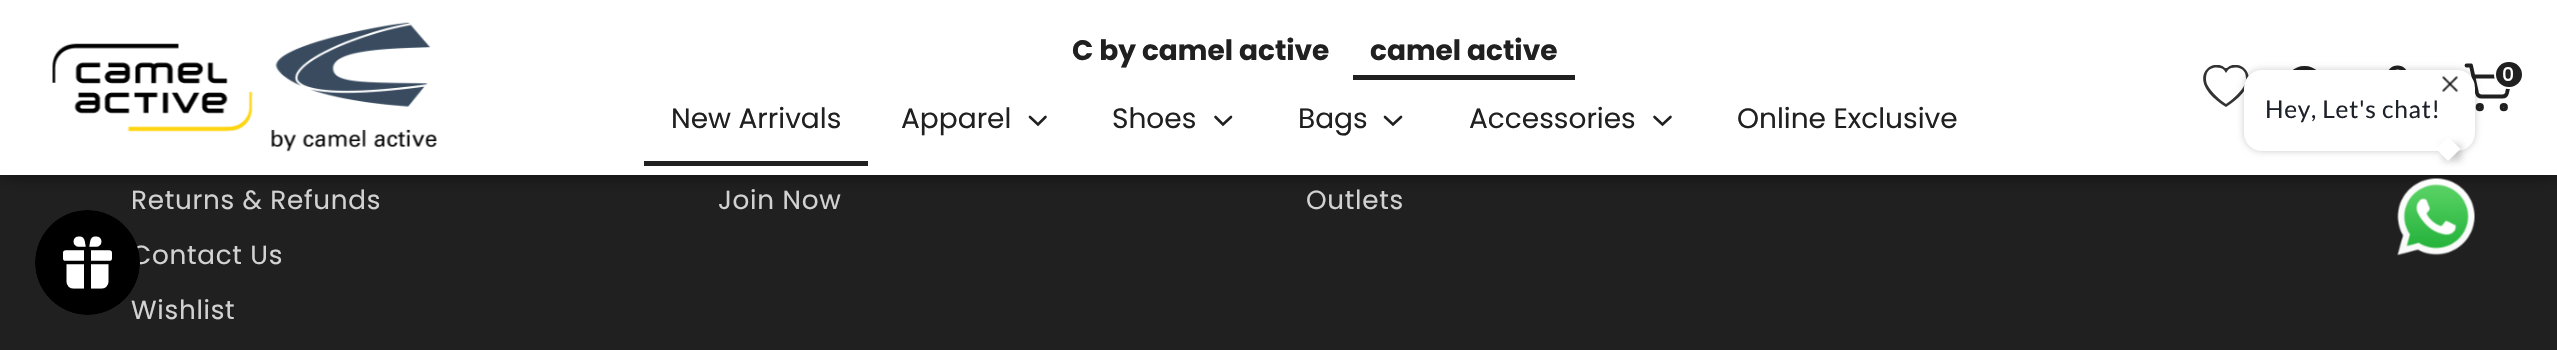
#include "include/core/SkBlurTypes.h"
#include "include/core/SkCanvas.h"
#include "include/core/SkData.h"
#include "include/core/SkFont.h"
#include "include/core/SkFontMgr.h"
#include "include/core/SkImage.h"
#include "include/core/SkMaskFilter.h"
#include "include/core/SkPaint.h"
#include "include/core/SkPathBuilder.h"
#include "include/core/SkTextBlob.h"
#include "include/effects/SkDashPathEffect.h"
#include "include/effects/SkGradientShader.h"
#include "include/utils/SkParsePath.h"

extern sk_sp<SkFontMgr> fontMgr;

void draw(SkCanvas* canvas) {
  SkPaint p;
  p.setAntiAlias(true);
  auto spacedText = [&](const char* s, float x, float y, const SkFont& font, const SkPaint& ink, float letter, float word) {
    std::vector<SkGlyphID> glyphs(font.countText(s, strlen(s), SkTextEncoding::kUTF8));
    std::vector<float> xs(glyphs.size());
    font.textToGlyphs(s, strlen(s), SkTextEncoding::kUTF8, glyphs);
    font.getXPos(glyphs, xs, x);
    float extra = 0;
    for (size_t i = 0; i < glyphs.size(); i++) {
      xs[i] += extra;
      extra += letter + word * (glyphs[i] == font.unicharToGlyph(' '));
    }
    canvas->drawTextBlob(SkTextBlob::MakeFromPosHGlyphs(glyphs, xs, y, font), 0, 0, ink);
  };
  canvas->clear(SkColorSetRGB(32, 32, 32));
  p.setColor(SkColorSetARGB(191, 0, 0, 0));
  p.setMaskFilter(SkMaskFilter::MakeBlur(kNormal_SkBlurStyle, 9));
  canvas->drawRect(SkRect::MakeLTRB(0, -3, 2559, 172), p);
  p.setMaskFilter(nullptr);
  p.setColor(SK_ColorWHITE);
  canvas->drawRect(SkRect::MakeLTRB(0, 0, 2557, 175), p);
  canvas->drawImageRect(SkImages::DeferredFromEncodedData(SkData::MakeFromFileName("images/1.png")), SkRect::MakeLTRB(52, 43, 253, 132), SkSamplingOptions());
  canvas->drawImageRect(SkImages::DeferredFromEncodedData(SkData::MakeFromFileName("images/2.png")), SkRect::MakeLTRB(271, 22, 437, 152), SkSamplingOptions());
  p.setColor(SkColorSetRGB(32, 32, 32));
  canvas->drawRect(SkRect::MakeLTRB(1353, 75, 1575, 80), p);
  canvas->drawRect(SkRect::MakeLTRB(644, 161, 868, 166), p);
  p.setStyle(SkPaint::kStroke_Style);
  p.setStrokeWidth(2.6f);
  p.setStrokeCap(SkPaint::kRound_Cap);
  canvas->drawPath(SkPathBuilder().moveTo(1030, 117).lineTo(1038, 124.5f).lineTo(1045.5f, 117).detach(), p);
  canvas->drawPath(SkPathBuilder().moveTo(1215.5f, 117).lineTo(1223, 124.5f).lineTo(1231, 117).detach(), p);
  canvas->drawPath(SkPathBuilder().moveTo(1385, 117).lineTo(1393, 124.5f).lineTo(1401, 117).detach(), p);
  canvas->drawPath(SkPathBuilder().moveTo(1654.5f, 117).lineTo(1662.5f, 124.5f).lineTo(1670.5f, 117).detach(), p);
  canvas->save();
  canvas->clipRect(SkRect::MakeLTRB(2200, 65, 2252, 110));
  p.setStyle(SkPaint::kFill_Style);
  p.setColor(SkColorSetRGB(51, 51, 51));
  canvas->drawPath(SkPathBuilder().moveTo(2226, 73).lineTo(2224, 70).cubicTo(2219, 66, 2210, 67, 2207, 73).cubicTo(2206, 76, 2205, 81, 2208, 86).cubicTo(2211, 91, 2216, 97, 2226, 104).cubicTo(2236, 97, 2241, 91, 2244, 86).cubicTo(2247, 81, 2246, 76, 2245, 73).cubicTo(2242, 67, 2233, 66, 2228, 70).close().moveTo(2226, 107).cubicTo(2182, 79, 2213, 56, 2225, 68).lineTo(2226, 68).lineTo(2227, 68).cubicTo(2239, 56, 2270, 79, 2226, 107).close().detach(), p);
  canvas->restore();
  p.setStyle(SkPaint::kStroke_Style);
  p.setStrokeWidth(3.8f);
  p.setStrokeCap(SkPaint::kButt_Cap);
  p.setColor(SkColorSetRGB(32, 32, 32));
  canvas->drawCircle(2304.5f, 85.5f, 17.5f, p);
  canvas->drawCircle(2397.5f, 76.5f, 9, p);
  canvas->drawCircle(2479.8f, 107.2f, 2.2f, p);
  canvas->drawCircle(2503.8f, 107.2f, 2.2f, p);
  p.setStrokeCap(SkPaint::kRound_Cap);
  p.setStrokeJoin(SkPaint::kRound_Join);
  canvas->drawPath(SkPathBuilder().moveTo(2466.5f, 65.5f).lineTo(2471, 65.5f).lineTo(2477, 93).cubicTo(2477.5f, 95, 2479, 96.5f, 2481.5f, 96.5f).lineTo(2502.5f, 96.5f).cubicTo(2504.5f, 96.5f, 2506.5f, 95, 2507, 93).lineTo(2510.5f, 76.5f).lineTo(2473.5f, 76.5f).detach(), p);
  p.setStyle(SkPaint::kFill_Style);
  canvas->drawRoundRect(SkRect::MakeLTRB(2495, 61, 2523, 88), 13.5f, 13.5f, p);
  p.setStyle(SkPaint::kStroke_Style);
  p.setStrokeWidth(2);
  p.setStrokeCap(SkPaint::kButt_Cap);
  p.setStrokeJoin(SkPaint::kMiter_Join);
  p.setColor(SK_ColorWHITE);
  canvas->drawRoundRect(SkRect::MakeLTRB(2495, 61, 2523, 88), 13.5f, 13.5f, p);
  p.setStyle(SkPaint::kFill_Style);
  p.setColor(SkColorSetARGB(51, 0, 0, 0));
  p.setMaskFilter(SkMaskFilter::MakeBlur(kNormal_SkBlurStyle, 3.5f));
  canvas->drawRoundRect(SkRect::MakeLTRB(2244, 70, 2475, 151), 18, 18, p);
  p.setMaskFilter(nullptr);
  p.setColor(SK_ColorWHITE);
  canvas->drawRoundRect(SkRect::MakeLTRB(2244, 70, 2475, 151), 18, 18, p);
  canvas->drawImageRect(SkImages::DeferredFromEncodedData(SkData::MakeFromFileName("images/3.png")), SkRect::MakeLTRB(2441, 75, 2459, 93), SkSamplingOptions());
  p.setColor(SkColorSetARGB(51, 0, 0, 0));
  p.setMaskFilter(SkMaskFilter::MakeBlur(kNormal_SkBlurStyle, 3.5f));
  canvas->drawRect(SkRect::MakeLTRB(2443, 144, 2461, 161), p);
  p.setMaskFilter(nullptr);
  p.setColor(SK_ColorWHITE);
  canvas->drawPath(SkPathBuilder().moveTo(2448, 136.5f).lineTo(2460.5f, 149).lineTo(2448, 161).lineTo(2436, 149).close().detach(), p);
  canvas->drawImageRect(SkImages::DeferredFromEncodedData(SkData::MakeFromFileName("images/4.png")), SkRect::MakeLTRB(2397, 178, 2475, 256), SkSamplingOptions());
  SkFont font1(fontMgr->matchFamilyStyle("Poppins", SkFontStyle::Bold()), 28);
  font1.setSubpixel(true);
  p.setColor(SkColorSetRGB(32, 32, 32));
  canvas->drawString("C by camel active", 1072, 60, font1, p);
  canvas->drawString("camel active", 1370, 60, font1, p);
  SkFont font2(fontMgr->matchFamilyStyle("Poppins", SkFontStyle::Normal()), 28);
  font2.setSubpixel(true);
  canvas->drawString("New Arrivals", 671, 128, font2, p);
  canvas->drawString("Apparel", 901, 128, font2, p);
  canvas->drawString("Shoes", 1112, 128, font2, p);
  canvas->drawString("Bags", 1298, 128, font2, p);
  canvas->drawString("Accessories", 1469, 128, font2, p);
  canvas->drawString("Online Exclusive", 1737, 128, font2, p);
  SkFont font3(fontMgr->matchFamilyStyle("Poppins", SkFontStyle(500, SkFontStyle::kNormal_Width, SkFontStyle::kUpright_Slant)), 19);
  font3.setSubpixel(true);
  p.setColor(SK_ColorWHITE);
  canvas->drawString("0", 2502, 81, font3, p);
  SkFont font4(fontMgr->matchFamilyStyle("Lato", SkFontStyle::Normal()), 24.5f);
  font4.setSubpixel(true);
  p.setColor(SkColorSetRGB(29, 33, 41));
  spacedText("Hey, Let's chat!", 2265, 118, font4, p, 0.7f, 0);
  SkFont font5(fontMgr->matchFamilyStyle("Poppins", SkFontStyle::Normal()), 26.25f);
  font5.setSubpixel(true);
  p.setColor(SkColorSetRGB(210, 210, 210));
  spacedText("Returns & Refunds", 131, 209, font5, p, 0.7f, 0);
  spacedText("Contact Us", 131, 264, font5, p, 0.7f, 0);
  spacedText("Wishlist", 131, 319, font5, p, 0.7f, 0);
  canvas->drawImageRect(SkImages::DeferredFromEncodedData(SkData::MakeFromFileName("images/5.png")), SkRect::MakeLTRB(35, 210, 140, 315), SkSamplingOptions());
  spacedText("Join Now", 718, 209, font5, p, 0.7f, 0);
  spacedText("Outlets", 1306, 209, font5, p, 0.7f, 0);
}
